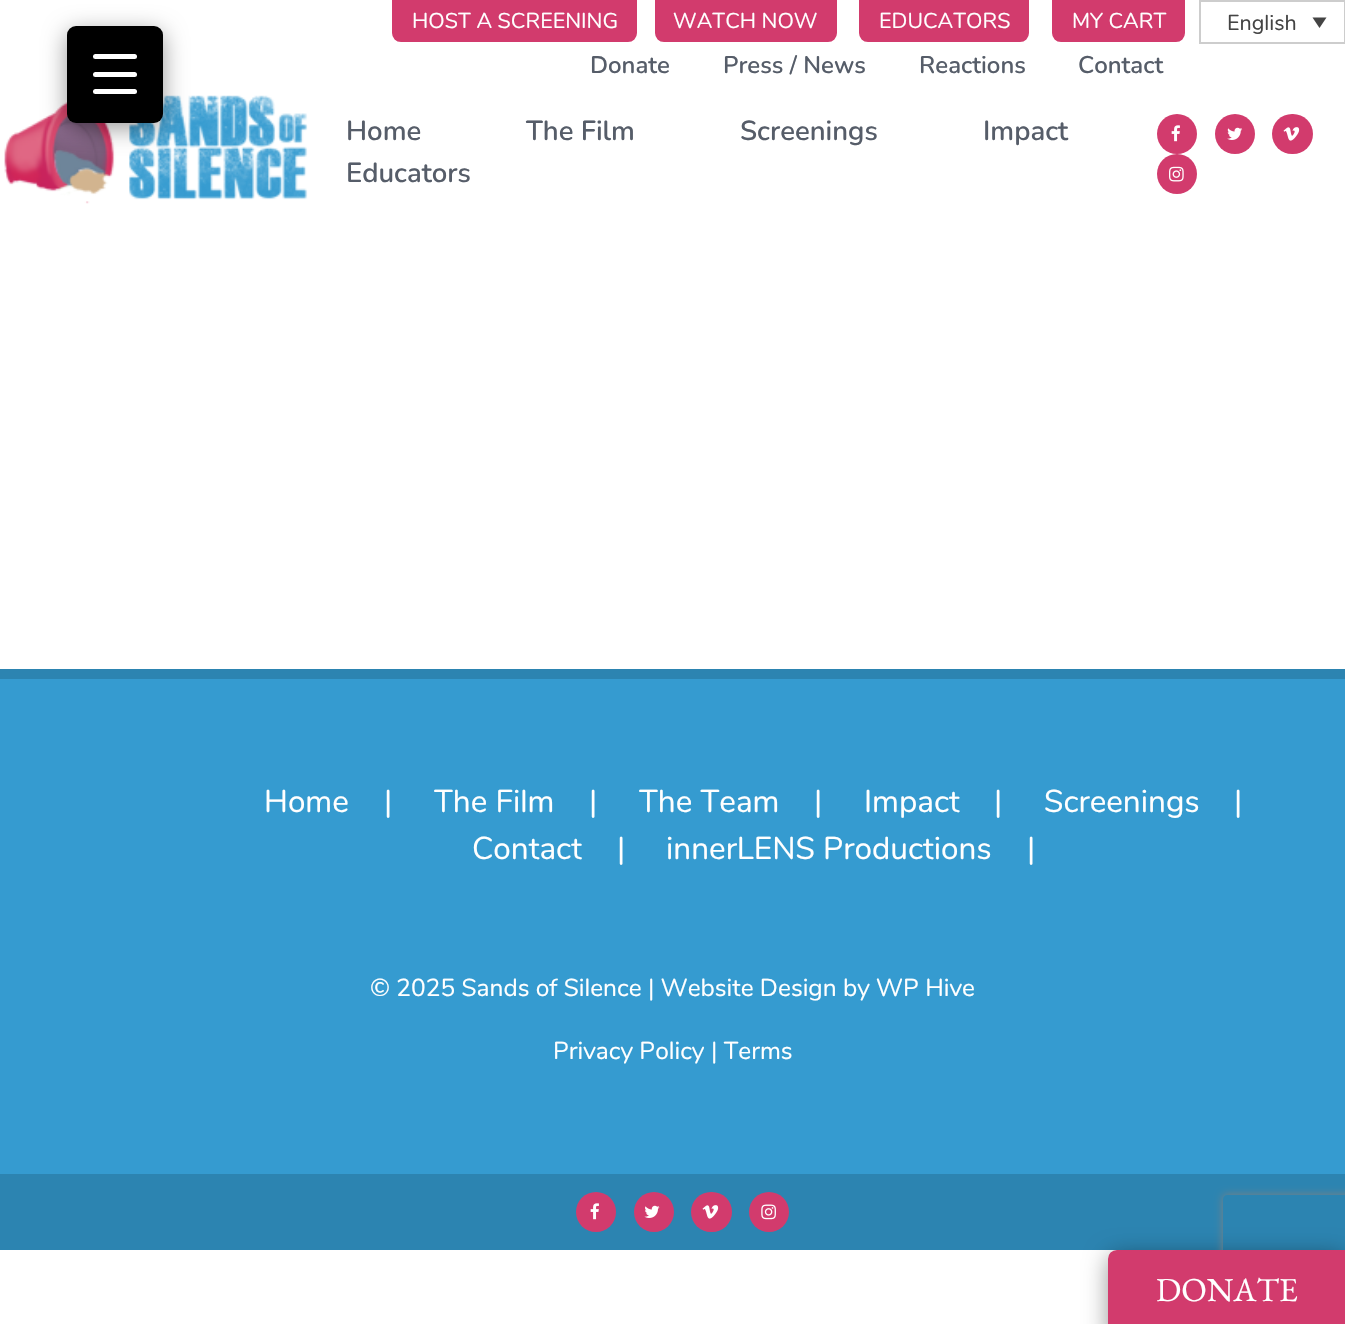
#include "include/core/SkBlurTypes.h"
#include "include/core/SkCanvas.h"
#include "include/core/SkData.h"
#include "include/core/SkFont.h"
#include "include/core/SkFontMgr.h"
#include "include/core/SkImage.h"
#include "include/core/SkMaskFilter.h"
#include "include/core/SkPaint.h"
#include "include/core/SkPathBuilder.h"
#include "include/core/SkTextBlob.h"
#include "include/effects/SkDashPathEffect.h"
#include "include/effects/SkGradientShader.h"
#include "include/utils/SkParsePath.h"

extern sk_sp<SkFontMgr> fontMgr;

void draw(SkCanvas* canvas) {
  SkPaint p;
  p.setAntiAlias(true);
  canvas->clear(SK_ColorWHITE);
  canvas->drawImageRect(SkImages::DeferredFromEncodedData(SkData::MakeFromFileName("images/1.png")), SkRect::MakeLTRB(4, 95, 308, 204), SkSamplingOptions());
  p.setColor(SkColorSetARGB(102, 0, 0, 0));
  p.setMaskFilter(SkMaskFilter::MakeBlur(kNormal_SkBlurStyle, 11.5f));
  canvas->drawRoundRect(SkRect::MakeLTRB(67, 32, 163, 128), 9, 9, p);
  p.setMaskFilter(nullptr);
  p.setColor(SK_ColorBLACK);
  canvas->drawRoundRect(SkRect::MakeLTRB(67, 26, 163, 123), 9, 9, p);
  p.setColor(SK_ColorWHITE);
  canvas->drawRoundRect(SkRect::MakeLTRB(93, 72, 137, 77), 2.5f, 2.5f, p);
  canvas->drawRoundRect(SkRect::MakeLTRB(93, 54, 137, 59), 2.5f, 2.5f, p);
  canvas->drawRoundRect(SkRect::MakeLTRB(93, 89, 137, 94), 2.5f, 2.5f, p);
  p.setColor(SkColorSetRGB(210, 59, 109));
  canvas->drawPath(SkPathBuilder().moveTo(393, -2).lineTo(636, -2).lineTo(636, 33).cubicTo(636, 37.5f, 632.5f, 41, 628, 41).lineTo(401, 41).cubicTo(396.5f, 41, 393, 37.5f, 393, 33).close().detach(), p);
  p.setStyle(SkPaint::kStroke_Style);
  p.setStrokeWidth(2);
  canvas->drawPath(SkPathBuilder().moveTo(393, -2).lineTo(636, -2).lineTo(636, 33).cubicTo(636, 37.5f, 632.5f, 41, 628, 41).lineTo(401, 41).cubicTo(396.5f, 41, 393, 37.5f, 393, 33).close().detach(), p);
  p.setStyle(SkPaint::kFill_Style);
  canvas->drawPath(SkPathBuilder().moveTo(656, -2).lineTo(836, -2).lineTo(836, 33).cubicTo(836, 37.5f, 832.5f, 41, 828, 41).lineTo(664, 41).cubicTo(659.5f, 41, 656, 37.5f, 656, 33).close().detach(), p);
  p.setStyle(SkPaint::kStroke_Style);
  canvas->drawPath(SkPathBuilder().moveTo(656, -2).lineTo(836, -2).lineTo(836, 33).cubicTo(836, 37.5f, 832.5f, 41, 828, 41).lineTo(664, 41).cubicTo(659.5f, 41, 656, 37.5f, 656, 33).close().detach(), p);
  p.setStyle(SkPaint::kFill_Style);
  canvas->drawPath(SkPathBuilder().moveTo(860, -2).lineTo(1028, -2).lineTo(1028, 33).cubicTo(1028, 37.5f, 1024.5f, 41, 1020, 41).lineTo(868, 41).cubicTo(863.5f, 41, 860, 37.5f, 860, 33).close().detach(), p);
  p.setStyle(SkPaint::kStroke_Style);
  canvas->drawPath(SkPathBuilder().moveTo(860, -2).lineTo(1028, -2).lineTo(1028, 33).cubicTo(1028, 37.5f, 1024.5f, 41, 1020, 41).lineTo(868, 41).cubicTo(863.5f, 41, 860, 37.5f, 860, 33).close().detach(), p);
  p.setStyle(SkPaint::kFill_Style);
  canvas->drawPath(SkPathBuilder().moveTo(1053, -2).lineTo(1184, -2).lineTo(1184, 33).cubicTo(1184, 37.5f, 1180.5f, 41, 1176, 41).lineTo(1061, 41).cubicTo(1056.5f, 41, 1053, 37.5f, 1053, 33).close().detach(), p);
  p.setStyle(SkPaint::kStroke_Style);
  canvas->drawPath(SkPathBuilder().moveTo(1053, -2).lineTo(1184, -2).lineTo(1184, 33).cubicTo(1184, 37.5f, 1180.5f, 41, 1176, 41).lineTo(1061, 41).cubicTo(1056.5f, 41, 1053, 37.5f, 1053, 33).close().detach(), p);
  p.setColor(SkColorSetRGB(205, 205, 205));
  canvas->drawRect(SkRect::MakeLTRB(1200, 1, 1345, 43), p);
  p.setStyle(SkPaint::kFill_Style);
  p.setColor(SkColorSetRGB(68, 68, 68));
  canvas->drawPath(SkPathBuilder().moveTo(1312.5f, 17.5f).lineTo(1326.5f, 17.5f).lineTo(1319.5f, 28).close().detach(), p);
  p.setColor(SkColorSetRGB(210, 59, 109));
  canvas->drawCircle(1177, 134, 20, p);
  canvas->drawImageRect(SkImages::DeferredFromEncodedData(SkData::MakeFromFileName("images/2.png")), SkRect::MakeLTRB(1171, 125, 1180, 142), SkSamplingOptions());
  canvas->drawCircle(1235, 134, 20, p);
  canvas->drawImageRect(SkImages::DeferredFromEncodedData(SkData::MakeFromFileName("images/3.png")), SkRect::MakeLTRB(1227, 127, 1243, 140), SkSamplingOptions());
  canvas->drawRoundRect(SkRect::MakeLTRB(1272, 114, 1313, 154), 20, 20, p);
  canvas->drawImageRect(SkImages::DeferredFromEncodedData(SkData::MakeFromFileName("images/4.png")), SkRect::MakeLTRB(1283, 127, 1300, 141), SkSamplingOptions());
  canvas->drawCircle(1177, 174, 20, p);
  canvas->drawImageRect(SkImages::DeferredFromEncodedData(SkData::MakeFromFileName("images/5.png")), SkRect::MakeLTRB(1169, 166, 1184, 182), SkSamplingOptions());
  p.setColor(SkColorSetRGB(53, 155, 208));
  canvas->drawRect(SkRect::MakeLTRB(0, 679, 1345, 1174), p);
  p.setColor(SkColorSetRGB(44, 132, 177));
  canvas->drawRect(SkRect::MakeLTRB(0, 669, 1345, 679), p);
  canvas->drawRect(SkRect::MakeLTRB(0, 1174, 1345, 1250), p);
  p.setColor(SkColorSetRGB(210, 59, 109));
  canvas->drawCircle(596, 1212, 20, p);
  canvas->drawImageRect(SkImages::DeferredFromEncodedData(SkData::MakeFromFileName("images/2.png")), SkRect::MakeLTRB(590, 1203, 599, 1220), SkSamplingOptions());
  canvas->drawCircle(654, 1212, 20, p);
  canvas->drawImageRect(SkImages::DeferredFromEncodedData(SkData::MakeFromFileName("images/6.png")), SkRect::MakeLTRB(644, 1205, 660, 1218), SkSamplingOptions());
  canvas->drawRoundRect(SkRect::MakeLTRB(691, 1192, 732, 1232), 20, 20, p);
  canvas->drawImageRect(SkImages::DeferredFromEncodedData(SkData::MakeFromFileName("images/4.png")), SkRect::MakeLTRB(702, 1205, 719, 1219), SkSamplingOptions());
  canvas->drawCircle(769, 1212, 20, p);
  canvas->drawImageRect(SkImages::DeferredFromEncodedData(SkData::MakeFromFileName("images/7.png")), SkRect::MakeLTRB(761, 1204, 776, 1220), SkSamplingOptions());
  p.setColor(SkColorSetARGB(102, 0, 0, 0));
  p.setMaskFilter(SkMaskFilter::MakeBlur(kNormal_SkBlurStyle, 11.5f));
  canvas->drawRoundRect(SkRect::MakeLTRB(1108, 1255, 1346, 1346), 9, 9, p);
  p.setMaskFilter(nullptr);
  canvas->save();
  canvas->clipPath(SkPathBuilder(SkPathFillType::kEvenOdd).moveTo(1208, 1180).lineTo(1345, 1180).lineTo(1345, 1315).lineTo(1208, 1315).close().moveTo(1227, 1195).lineTo(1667, 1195).cubicTo(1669, 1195, 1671, 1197, 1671, 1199).lineTo(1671, 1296).cubicTo(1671, 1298, 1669, 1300, 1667, 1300).lineTo(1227, 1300).cubicTo(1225, 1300, 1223, 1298, 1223, 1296).lineTo(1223, 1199).cubicTo(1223, 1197, 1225, 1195, 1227, 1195).close().detach(), true);
  p.setColor(SkColorSetRGB(128, 128, 128));
  p.setMaskFilter(SkMaskFilter::MakeBlur(kNormal_SkBlurStyle, 4.5f));
  canvas->drawRoundRect(SkRect::MakeLTRB(1223, 1195, 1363, 1300), 4, 4, p);
  p.setMaskFilter(nullptr);
  canvas->restore();
  p.setColor(SkColorSetRGB(210, 59, 109));
  canvas->drawPath(SkPathBuilder().moveTo(1117, 1251).lineTo(1345, 1251).lineTo(1345, 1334).lineTo(1109, 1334).lineTo(1109, 1259).cubicTo(1109, 1254.5f, 1112.5f, 1251, 1117, 1251).close().detach(), p);
  p.setStyle(SkPaint::kStroke_Style);
  canvas->drawPath(SkPathBuilder().moveTo(1117, 1251).lineTo(1345, 1251).lineTo(1345, 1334).lineTo(1109, 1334).lineTo(1109, 1259).cubicTo(1109, 1254.5f, 1112.5f, 1251, 1117, 1251).close().detach(), p);
  SkFont font1(fontMgr->matchFamilyStyle("Nunito", SkFontStyle::Normal()), 21.5f);
  font1.setSubpixel(true);
  p.setStyle(SkPaint::kFill_Style);
  p.setColor(SK_ColorWHITE);
  canvas->drawString("HOST A SCREENING", 412, 28, font1, p);
  canvas->drawString("WATCH NOW", 673, 28, font1, p);
  canvas->drawString("EDUCATORS", 879, 28, font1, p);
  canvas->drawString("MY CART", 1072, 28, font1, p);
  p.setColor(SkColorSetRGB(68, 68, 68));
  canvas->drawString("English", 1227, 30, font1, p);
  SkFont font2(fontMgr->matchFamilyStyle("Nunito", SkFontStyle(600, SkFontStyle::kNormal_Width, SkFontStyle::kUpright_Slant)), 24);
  font2.setSubpixel(true);
  p.setColor(SkColorSetRGB(86, 93, 105));
  canvas->drawString("Donate", 590, 73, font2, p);
  canvas->drawString("Press / News", 723, 73, font2, p);
  canvas->drawString("Reactions", 919, 73, font2, p);
  canvas->drawString("Contact", 1078, 73, font2, p);
  SkFont font3(fontMgr->matchFamilyStyle("Nunito", SkFontStyle(600, SkFontStyle::kNormal_Width, SkFontStyle::kUpright_Slant)), 27.5f);
  font3.setSubpixel(true);
  canvas->drawString("Home", 346, 140, font3, p);
  canvas->drawString("The Film", 526, 140, font3, p);
  canvas->drawString("Screenings", 740, 140, font3, p);
  canvas->drawString("Impact", 983, 140, font3, p);
  canvas->drawString("Educators", 346, 182, font3, p);
  SkFont font4(fontMgr->matchFamilyStyle("Nunito", SkFontStyle::Normal()), 31.5f);
  font4.setSubpixel(true);
  p.setColor(SK_ColorWHITE);
  canvas->drawString("Home", 264, 812, font4, p);
  canvas->drawString("|", 384, 812, font4, p);
  canvas->drawString("The Film", 434, 812, font4, p);
  canvas->drawString("|", 589, 812, font4, p);
  canvas->drawString("The Team", 639, 812, font4, p);
  canvas->drawString("|", 814, 812, font4, p);
  canvas->drawString("Impact", 864, 812, font4, p);
  canvas->drawString("|", 994, 812, font4, p);
  canvas->drawString("Screenings", 1044, 812, font4, p);
  canvas->drawString("|", 1234, 812, font4, p);
  canvas->drawString("Contact", 472, 859, font4, p);
  canvas->drawString("|", 617, 859, font4, p);
  canvas->drawString("innerLENS Productions", 666, 859, font4, p);
  canvas->drawString("|", 1027, 859, font4, p);
  SkFont font5(fontMgr->matchFamilyStyle("Nunito", SkFontStyle::Normal()), 24.5f);
  font5.setSubpixel(true);
  canvas->drawString("© 2025 Sands of Silence | Website Design by WP Hive", 370, 996, font5, p);
  canvas->drawString("Privacy Policy", 553, 1059, font5, p);
  canvas->drawString("| Terms", 711, 1059, font5, p);
  SkFont font6(fontMgr->matchFamilyStyle("EB Garamond", SkFontStyle::Normal()), 33.5f);
  font6.setSubpixel(true);
  canvas->drawString("DONATE", 1156, 1301, font6, p);
}
